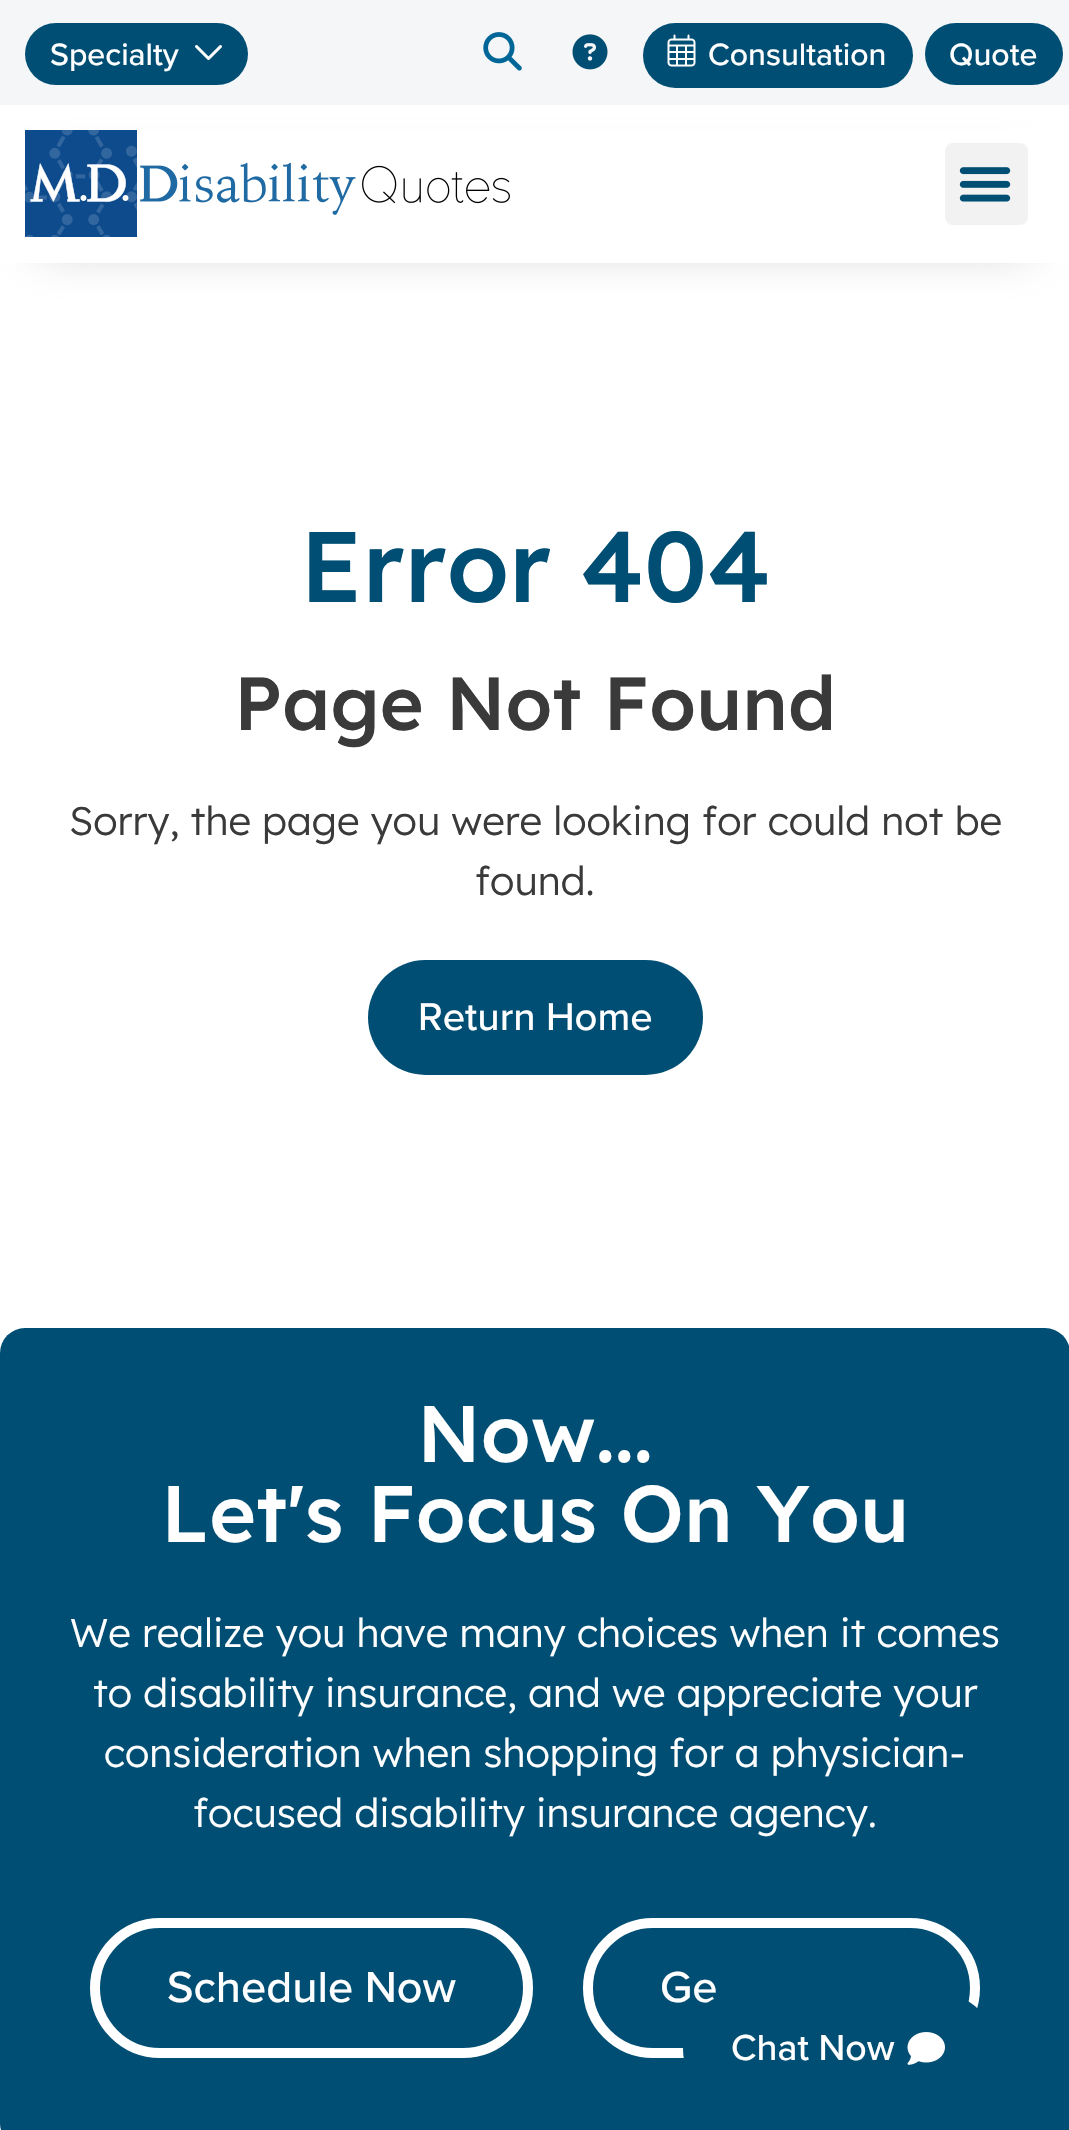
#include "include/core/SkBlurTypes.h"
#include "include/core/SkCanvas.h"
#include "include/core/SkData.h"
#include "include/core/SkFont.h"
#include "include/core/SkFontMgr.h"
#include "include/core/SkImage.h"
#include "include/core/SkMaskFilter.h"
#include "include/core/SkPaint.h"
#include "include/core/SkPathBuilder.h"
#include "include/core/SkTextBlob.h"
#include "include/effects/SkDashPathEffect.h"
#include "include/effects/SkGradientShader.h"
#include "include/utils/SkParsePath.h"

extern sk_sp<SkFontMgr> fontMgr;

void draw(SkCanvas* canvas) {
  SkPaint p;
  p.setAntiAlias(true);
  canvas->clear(SK_ColorWHITE);
  p.setColor(SkColorSetRGB(244, 246, 248));
  canvas->drawRect(SkRect::MakeLTRB(0, 0, 1069, 105), p);
  p.setColor(SkColorSetRGB(0, 78, 115));
  canvas->drawRoundRect(SkRect::MakeLTRB(25, 23, 248, 85), 31, 31, p);
  canvas->drawImageRect(SkImages::DeferredFromEncodedData(SkData::MakeFromFileName("images/1.png")), SkRect::MakeLTRB(195, 45, 222, 60), SkSamplingOptions());
  canvas->drawImageRect(SkImages::DeferredFromEncodedData(SkData::MakeFromFileName("images/2.png")), SkRect::MakeLTRB(483, 32, 522, 71), SkSamplingOptions());
  canvas->drawImageRect(SkImages::DeferredFromEncodedData(SkData::MakeFromFileName("images/3.png")), SkRect::MakeLTRB(572, 34, 608, 70), SkSamplingOptions());
  canvas->drawRoundRect(SkRect::MakeLTRB(643, 23, 913, 88), 32.5f, 32.5f, p);
  canvas->drawImageRect(SkImages::DeferredFromEncodedData(SkData::MakeFromFileName("images/4.png")), SkRect::MakeLTRB(667, 34, 696, 67), SkSamplingOptions());
  canvas->drawRoundRect(SkRect::MakeLTRB(925, 23, 1063, 85), 31, 31, p);
  p.setColor(SkColorSetARGB(128, 152, 152, 152));
  p.setMaskFilter(SkMaskFilter::MakeBlur(kNormal_SkBlurStyle, 24));
  canvas->drawRect(SkRect::MakeLTRB(38, 168, 1033, 250), p);
  p.setMaskFilter(nullptr);
  p.setColor(SK_ColorWHITE);
  canvas->drawRect(SkRect::MakeLTRB(0, 129, 1069, 263), p);
  canvas->drawImageRect(SkImages::DeferredFromEncodedData(SkData::MakeFromFileName("images/5.png")), SkRect::MakeLTRB(25, 130, 510, 237), SkSamplingOptions());
  p.setColor(SkColorSetRGB(242, 242, 242));
  canvas->drawRoundRect(SkRect::MakeLTRB(945, 143, 1028, 225), 8, 8, p);
  canvas->drawImageRect(SkImages::DeferredFromEncodedData(SkData::MakeFromFileName("images/6.png")), SkRect::MakeLTRB(959, 167, 1011, 202), SkSamplingOptions());
  p.setColor(SkColorSetRGB(0, 78, 115));
  canvas->drawRoundRect(SkRect::MakeLTRB(368, 960, 703, 1075), 57.5f, 57.5f, p);
  canvas->drawRoundRect(SkRect::MakeLTRB(0, 1328, 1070, 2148), 25, 25, p);
  p.setStyle(SkPaint::kStroke_Style);
  p.setStrokeWidth(10);
  p.setColor(SK_ColorWHITE);
  canvas->drawRoundRect(SkRect::MakeLTRB(95, 1923, 528, 2053), 65, 65, p);
  canvas->drawRoundRect(SkRect::MakeLTRB(588, 1923, 975, 2053), 65, 65, p);
  SkFont font1(fontMgr->matchFamilyStyle("Proxima Nova", SkFontStyle(500, SkFontStyle::kNormal_Width, SkFontStyle::kUpright_Slant)), 32);
  font1.setSubpixel(true);
  p.setStyle(SkPaint::kFill_Style);
  canvas->drawString("Specialty", 50, 65, font1, p);
  canvas->drawString("Consultation", 708, 65, font1, p);
  canvas->drawString("Quote", 949, 65, font1, p);
  SkFont font2(fontMgr->matchFamilyStyle("Lexend", SkFontStyle(500, SkFontStyle::kNormal_Width, SkFontStyle::kUpright_Slant)), 100);
  font2.setSubpixel(true);
  p.setColor(SkColorSetRGB(0, 78, 115));
  canvas->drawString("Error 404", 300, 602, font2, p);
  SkFont font3(fontMgr->matchFamilyStyle("Lexend", SkFontStyle(500, SkFontStyle::kNormal_Width, SkFontStyle::kUpright_Slant)), 75);
  font3.setSubpixel(true);
  p.setColor(SkColorSetRGB(59, 58, 58));
  canvas->drawString("Page Not Found", 234, 730, font3, p);
  SkFont font4(fontMgr->matchFamilyStyle("Lexend", SkFontStyle(300, SkFontStyle::kNormal_Width, SkFontStyle::kUpright_Slant)), 40);
  font4.setSubpixel(true);
  canvas->drawString("Sorry, the page you were looking for could not be", 69, 835, font4, p);
  canvas->drawString("found.", 475, 895, font4, p);
  SkFont font5(fontMgr->matchFamilyStyle("Proxima Nova", SkFontStyle(500, SkFontStyle::kNormal_Width, SkFontStyle::kUpright_Slant)), 40);
  font5.setSubpixel(true);
  p.setColor(SK_ColorWHITE);
  canvas->drawString("Return Home", 418, 1030, font5, p);
  SkFont font6(fontMgr->matchFamilyStyle("Lexend", SkFontStyle(500, SkFontStyle::kNormal_Width, SkFontStyle::kUpright_Slant)), 80);
  font6.setSubpixel(true);
  canvas->drawString("Now...", 417, 1462, font6, p);
  canvas->drawString("Let's Focus On You", 161, 1542, font6, p);
  canvas->drawString("We realize you have many choices when it comes", 70, 1647, font4, p);
  canvas->drawString("to disability insurance, and we appreciate your", 93, 1707, font4, p);
  canvas->drawString("consideration when shopping for a physician-", 104, 1767, font4, p);
  canvas->drawString("focused disability insurance agency.", 193, 1827, font4, p);
  SkFont font7(fontMgr->matchFamilyStyle("Proxima Nova", SkFontStyle(500, SkFontStyle::kNormal_Width, SkFontStyle::kUpright_Slant)), 45);
  font7.setSubpixel(true);
  canvas->drawString("Schedule Now", 167, 2002, font7, p);
  canvas->drawString("Ge", 660, 2002, font7, p);
  p.setColor(SkColorSetRGB(0, 78, 115));
  canvas->drawRoundRect(SkRect::MakeLTRB(683, 1993, 995, 2105), 56, 56, p);
  SkFont font8(fontMgr->matchFamilyStyle("Proxima Nova", SkFontStyle(500, SkFontStyle::kNormal_Width, SkFontStyle::kUpright_Slant)), 37.5f);
  font8.setSubpixel(true);
  p.setColor(SK_ColorWHITE);
  canvas->drawString("Chat Now", 731, 2060, font8, p);
  canvas->drawImageRect(SkImages::DeferredFromEncodedData(SkData::MakeFromFileName("images/7.png")), SkRect::MakeLTRB(907, 2032, 945, 2065), SkSamplingOptions());
}
